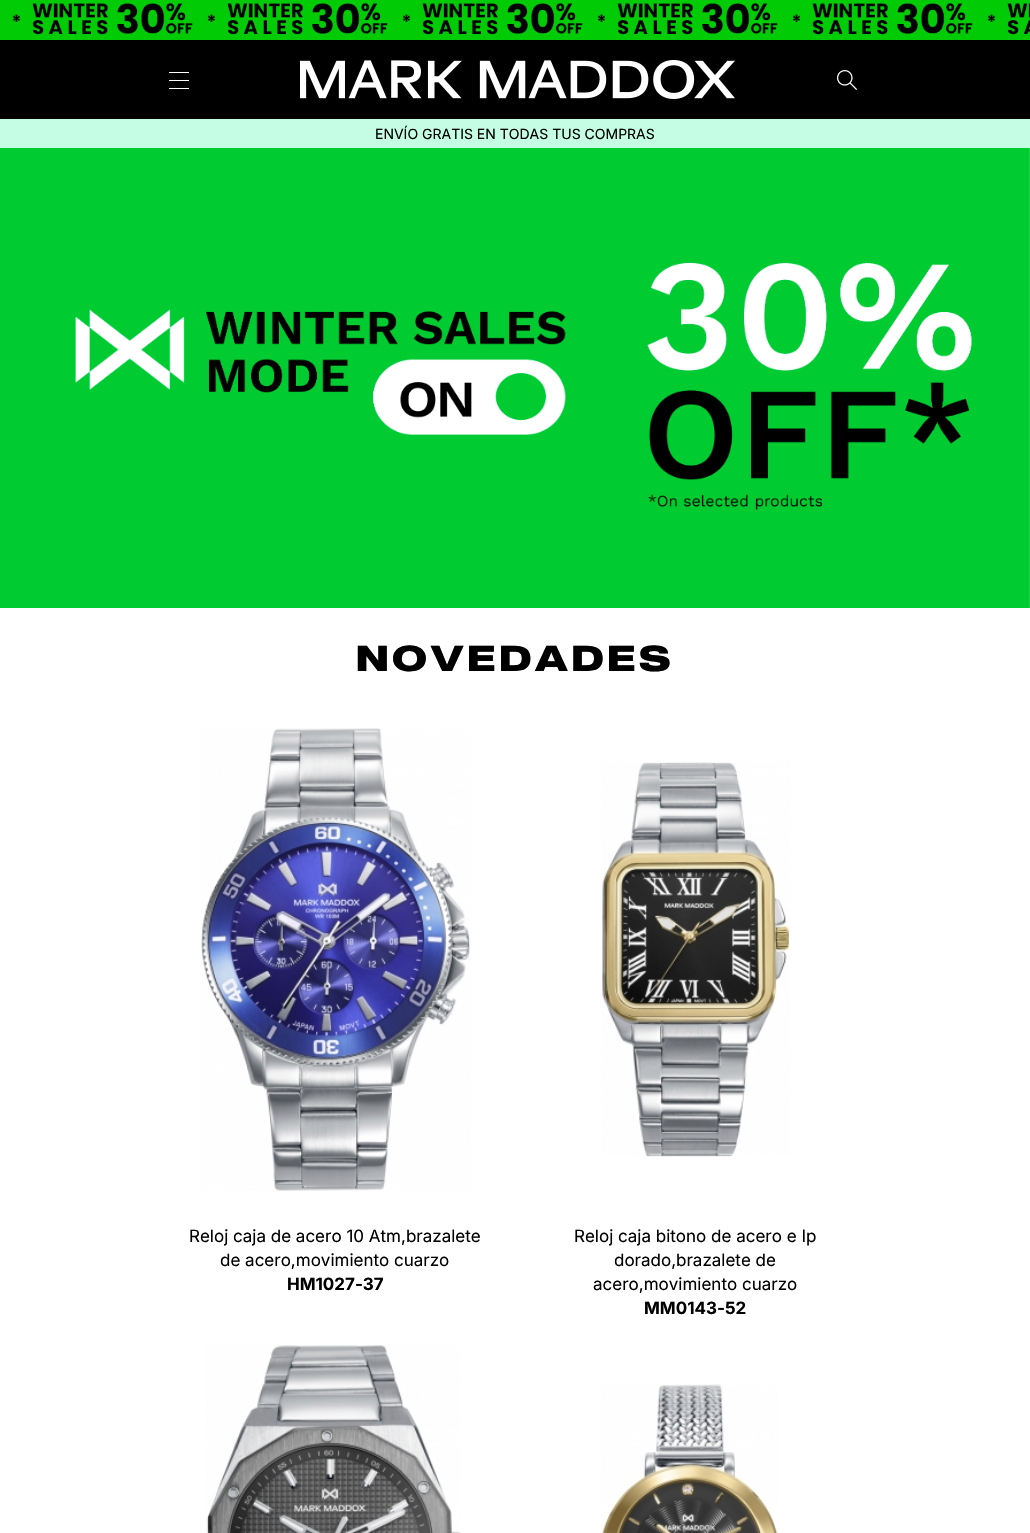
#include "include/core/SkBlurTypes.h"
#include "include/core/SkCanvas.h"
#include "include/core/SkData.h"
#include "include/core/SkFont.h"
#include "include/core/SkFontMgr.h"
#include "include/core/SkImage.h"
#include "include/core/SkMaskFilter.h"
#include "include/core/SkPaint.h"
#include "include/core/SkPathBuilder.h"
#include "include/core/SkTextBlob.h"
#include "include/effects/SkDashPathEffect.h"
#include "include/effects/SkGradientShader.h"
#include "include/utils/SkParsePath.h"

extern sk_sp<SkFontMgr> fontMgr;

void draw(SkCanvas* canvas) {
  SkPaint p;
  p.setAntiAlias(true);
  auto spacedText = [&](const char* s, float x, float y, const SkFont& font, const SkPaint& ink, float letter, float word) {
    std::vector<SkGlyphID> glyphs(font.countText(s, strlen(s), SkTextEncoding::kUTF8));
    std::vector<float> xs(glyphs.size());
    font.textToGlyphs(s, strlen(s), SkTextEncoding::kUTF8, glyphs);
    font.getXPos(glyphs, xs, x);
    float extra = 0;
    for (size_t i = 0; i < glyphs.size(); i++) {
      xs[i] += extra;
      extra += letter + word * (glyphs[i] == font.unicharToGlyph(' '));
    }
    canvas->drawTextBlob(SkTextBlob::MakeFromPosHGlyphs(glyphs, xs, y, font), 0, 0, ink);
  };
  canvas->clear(SK_ColorWHITE);
  canvas->drawImageRect(SkImages::DeferredFromEncodedData(SkData::MakeFromFileName("images/1.png")), SkRect::MakeLTRB(0, 0, 1030, 40), SkSamplingOptions());
  p.setColor(SK_ColorBLACK);
  canvas->drawRect(SkRect::MakeLTRB(0, 40, 1030, 119), p);
  p.setColor(SK_ColorWHITE);
  canvas->drawRect(SkRect::MakeLTRB(169, 72, 189, 73), p);
  canvas->drawRect(SkRect::MakeLTRB(169, 80, 189, 81), p);
  canvas->drawRect(SkRect::MakeLTRB(169, 88, 189, 89), p);
  canvas->drawImageRect(SkImages::DeferredFromEncodedData(SkData::MakeFromFileName("images/2.png")), SkRect::MakeLTRB(300, 60, 735, 99), SkSamplingOptions());
  canvas->drawImageRect(SkImages::DeferredFromEncodedData(SkData::MakeFromFileName("images/3.png")), SkRect::MakeLTRB(837, 70, 857, 90), SkSamplingOptions());
  p.setColor(SkColorSetRGB(196, 252, 228));
  canvas->drawRect(SkRect::MakeLTRB(0, 119, 1030, 148), p);
  canvas->drawImageRect(SkImages::DeferredFromEncodedData(SkData::MakeFromFileName("images/4.png")), SkRect::MakeLTRB(0, 148, 1030, 608), SkSamplingOptions());
  canvas->drawImageRect(SkImages::DeferredFromEncodedData(SkData::MakeFromFileName("images/5.png")), SkRect::MakeLTRB(201, 728, 471, 1191), SkSamplingOptions());
  canvas->drawImageRect(SkImages::DeferredFromEncodedData(SkData::MakeFromFileName("images/6.png")), SkRect::MakeLTRB(602, 762, 790, 1157), SkSamplingOptions());
  canvas->drawImageRect(SkImages::DeferredFromEncodedData(SkData::MakeFromFileName("images/7.png")), SkRect::MakeLTRB(206, 1345, 461, 1533), SkSamplingOptions());
  canvas->drawImageRect(SkImages::DeferredFromEncodedData(SkData::MakeFromFileName("images/8.png")), SkRect::MakeLTRB(601, 1384, 778, 1533), SkSamplingOptions());
  SkFont font1(fontMgr->matchFamilyStyle("Inter", SkFontStyle::Normal()), 14);
  font1.setSubpixel(true);
  p.setColor(SK_ColorBLACK);
  canvas->drawString("ENVÍO GRATIS EN TODAS TUS COMPRAS", 375, 139, font1, p);
  SkFont font2(fontMgr->matchFamilyStyle("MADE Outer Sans", SkFontStyle::Bold()), 36);
  font2.setSubpixel(true);
  spacedText("NOVEDADES", 356, 671, font2, p, 3.5f, 0);
  SkFont font3(fontMgr->matchFamilyStyle("Inter", SkFontStyle::Normal()), 17);
  font3.setSubpixel(true);
  canvas->drawString("Reloj caja de acero 10 Atm,brazalete", 189, 1242, font3, p);
  canvas->drawString("de acero,movimiento cuarzo", 220, 1266, font3, p);
  SkFont font4(fontMgr->matchFamilyStyle("Inter", SkFontStyle::Bold()), 17);
  font4.setSubpixel(true);
  canvas->drawString("HM1027-37", 287, 1290, font4, p);
  canvas->drawString("Reloj caja bitono de acero e Ip", 574, 1242, font3, p);
  canvas->drawString("dorado,brazalete de", 614, 1266, font3, p);
  canvas->drawString("acero,movimiento cuarzo", 593, 1290, font3, p);
  canvas->drawString("MM0143-52", 644, 1314, font4, p);
}
